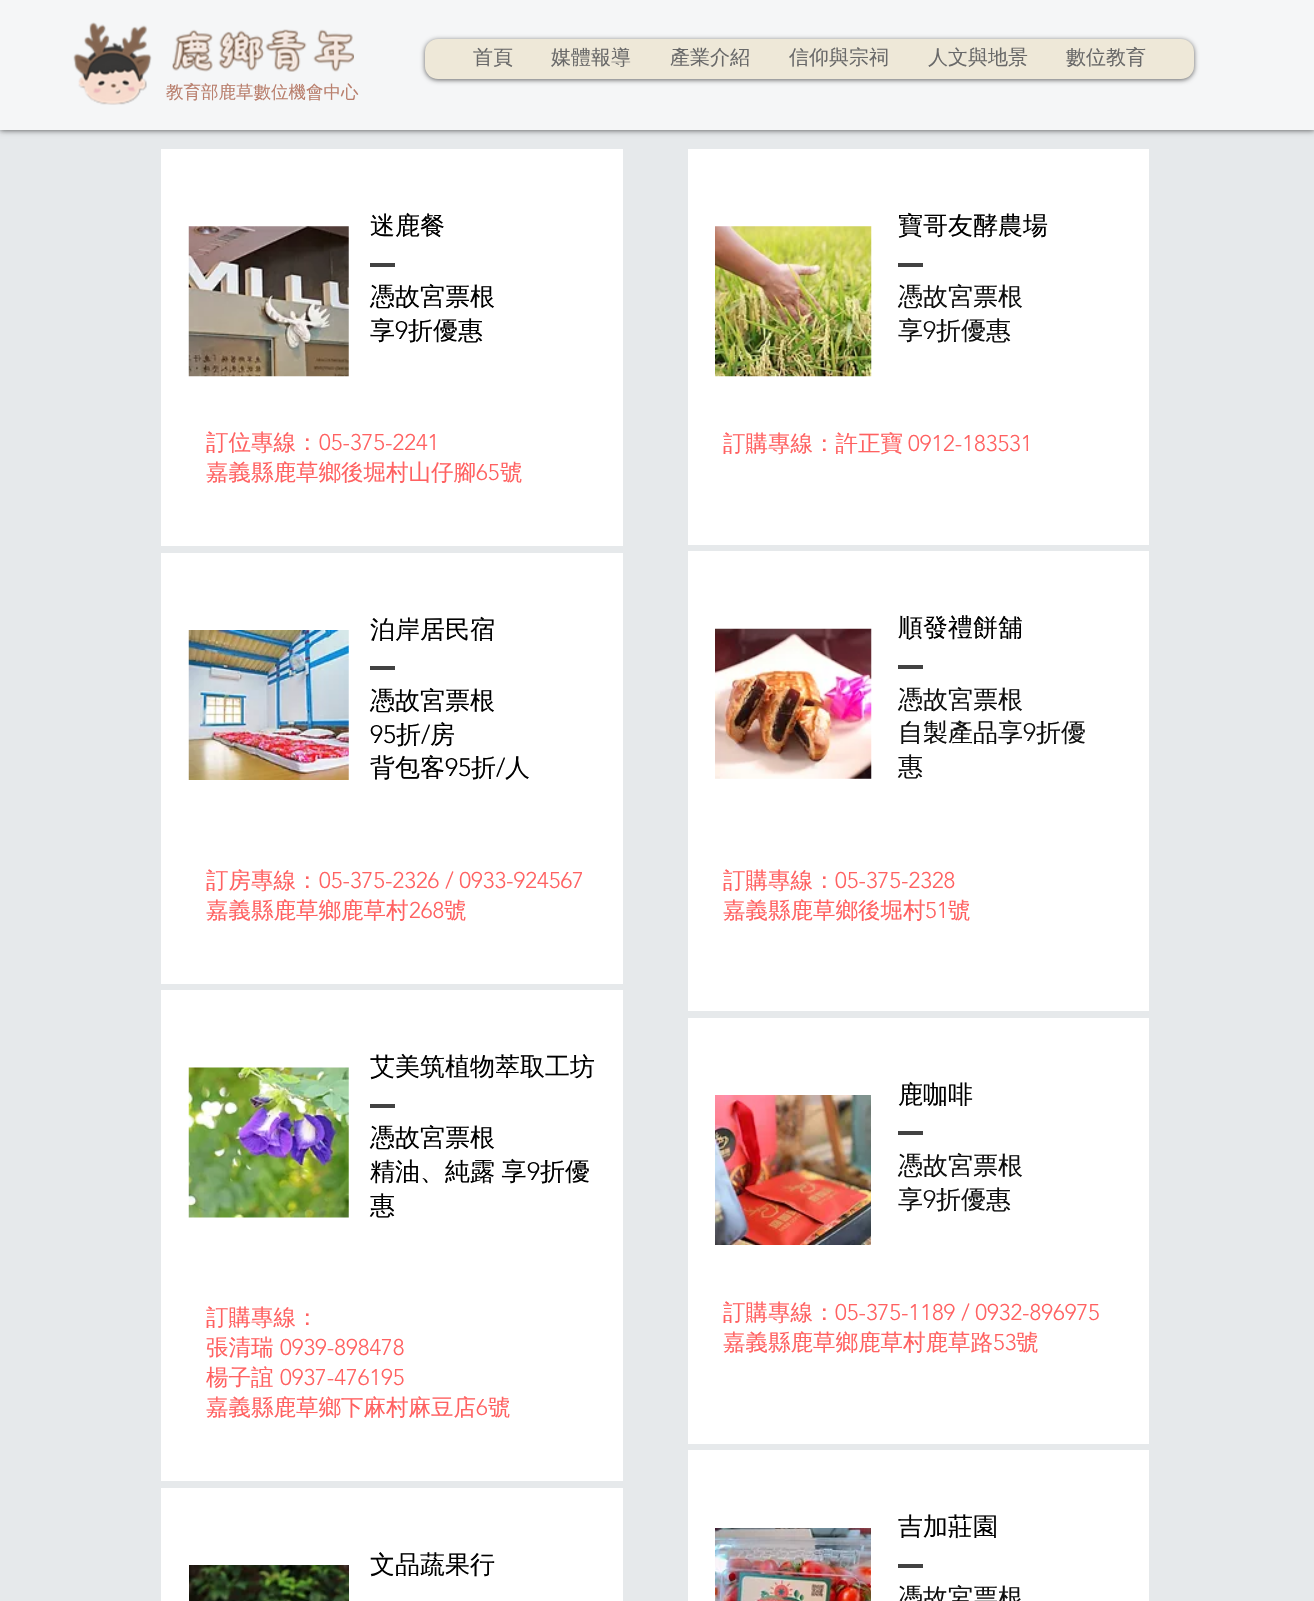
#include "include/core/SkBlurTypes.h"
#include "include/core/SkCanvas.h"
#include "include/core/SkData.h"
#include "include/core/SkFont.h"
#include "include/core/SkFontMgr.h"
#include "include/core/SkImage.h"
#include "include/core/SkMaskFilter.h"
#include "include/core/SkPaint.h"
#include "include/core/SkPathBuilder.h"
#include "include/core/SkTextBlob.h"
#include "include/effects/SkDashPathEffect.h"
#include "include/effects/SkGradientShader.h"
#include "include/utils/SkParsePath.h"

extern sk_sp<SkFontMgr> fontMgr;

void draw(SkCanvas* canvas) {
  SkPaint p;
  p.setAntiAlias(true);
  auto spacedText = [&](const char* s, float x, float y, const SkFont& font, const SkPaint& ink, float letter, float word) {
    std::vector<SkGlyphID> glyphs(font.countText(s, strlen(s), SkTextEncoding::kUTF8));
    std::vector<float> xs(glyphs.size());
    font.textToGlyphs(s, strlen(s), SkTextEncoding::kUTF8, glyphs);
    font.getXPos(glyphs, xs, x);
    float extra = 0;
    for (size_t i = 0; i < glyphs.size(); i++) {
      xs[i] += extra;
      extra += letter + word * (glyphs[i] == font.unicharToGlyph(' '));
    }
    canvas->drawTextBlob(SkTextBlob::MakeFromPosHGlyphs(glyphs, xs, y, font), 0, 0, ink);
  };
  canvas->clear(SkColorSetRGB(230, 233, 235));
  p.setColor(SkColorSetARGB(179, 0, 0, 0));
  p.setMaskFilter(SkMaskFilter::MakeBlur(kNormal_SkBlurStyle, 3));
  canvas->drawRect(SkRect::MakeLTRB(0, 0, 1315, 130), p);
  p.setMaskFilter(nullptr);
  p.setColor(SkColorSetRGB(245, 246, 247));
  canvas->drawRect(SkRect::MakeLTRB(0, 0, 1314, 130), p);
  p.setColor(SkColorSetARGB(153, 0, 0, 0));
  p.setMaskFilter(SkMaskFilter::MakeBlur(kNormal_SkBlurStyle, 2.5f));
  canvas->drawRoundRect(SkRect::MakeLTRB(425, 40, 1194, 80), 13, 13, p);
  p.setMaskFilter(nullptr);
  p.setColor(SkColorSetRGB(238, 232, 216));
  canvas->drawRoundRect(SkRect::MakeLTRB(425, 39, 1194, 79), 13, 13, p);
  canvas->drawImageRect(SkImages::DeferredFromEncodedData(SkData::MakeFromFileName("images/1.png")), SkRect::MakeLTRB(73, 22, 152, 105), SkSamplingOptions());
  canvas->drawImageRect(SkImages::DeferredFromEncodedData(SkData::MakeFromFileName("images/2.png")), SkRect::MakeLTRB(172, 29, 354, 72), SkSamplingOptions());
  p.setColor(SK_ColorWHITE);
  canvas->drawRect(SkRect::MakeLTRB(161, 149, 623, 546), p);
  canvas->drawImageRect(SkImages::DeferredFromEncodedData(SkData::MakeFromFileName("images/3.png")), SkRect::MakeLTRB(188, 226, 349, 377), SkSamplingOptions());
  p.setColor(SkColorSetRGB(66, 66, 66));
  canvas->drawRect(SkRect::MakeLTRB(370, 263, 395, 267), p);
  p.setColor(SK_ColorWHITE);
  canvas->drawRect(SkRect::MakeLTRB(161, 553, 623, 984), p);
  canvas->drawImageRect(SkImages::DeferredFromEncodedData(SkData::MakeFromFileName("images/4.png")), SkRect::MakeLTRB(188, 630, 349, 780), SkSamplingOptions());
  p.setColor(SkColorSetRGB(66, 66, 66));
  canvas->drawRect(SkRect::MakeLTRB(370, 666, 395, 670), p);
  p.setColor(SK_ColorWHITE);
  canvas->drawRect(SkRect::MakeLTRB(161, 990, 623, 1481), p);
  canvas->drawImageRect(SkImages::DeferredFromEncodedData(SkData::MakeFromFileName("images/5.png")), SkRect::MakeLTRB(188, 1067, 349, 1218), SkSamplingOptions());
  p.setColor(SkColorSetRGB(66, 66, 66));
  canvas->drawRect(SkRect::MakeLTRB(370, 1104, 395, 1108), p);
  p.setColor(SK_ColorWHITE);
  canvas->drawRect(SkRect::MakeLTRB(161, 1488, 623, 1601), p);
  canvas->drawImageRect(SkImages::DeferredFromEncodedData(SkData::MakeFromFileName("images/6.png")), SkRect::MakeLTRB(189, 1565, 349, 1601), SkSamplingOptions());
  canvas->drawRect(SkRect::MakeLTRB(688, 149, 1149, 545), p);
  canvas->drawImageRect(SkImages::DeferredFromEncodedData(SkData::MakeFromFileName("images/7.png")), SkRect::MakeLTRB(715, 226, 872, 377), SkSamplingOptions());
  p.setColor(SkColorSetRGB(66, 66, 66));
  canvas->drawRect(SkRect::MakeLTRB(898, 263, 923, 267), p);
  p.setColor(SK_ColorWHITE);
  canvas->drawRect(SkRect::MakeLTRB(688, 551, 1149, 1011), p);
  canvas->drawImageRect(SkImages::DeferredFromEncodedData(SkData::MakeFromFileName("images/8.png")), SkRect::MakeLTRB(715, 628, 872, 779), SkSamplingOptions());
  p.setColor(SkColorSetRGB(66, 66, 66));
  canvas->drawRect(SkRect::MakeLTRB(898, 665, 923, 669), p);
  p.setColor(SK_ColorWHITE);
  canvas->drawRect(SkRect::MakeLTRB(688, 1018, 1149, 1444), p);
  canvas->drawImageRect(SkImages::DeferredFromEncodedData(SkData::MakeFromFileName("images/9.png")), SkRect::MakeLTRB(715, 1095, 871, 1245), SkSamplingOptions());
  p.setColor(SkColorSetRGB(66, 66, 66));
  canvas->drawRect(SkRect::MakeLTRB(898, 1131, 923, 1135), p);
  p.setColor(SK_ColorWHITE);
  canvas->drawRect(SkRect::MakeLTRB(688, 1450, 1149, 1601), p);
  canvas->drawImageRect(SkImages::DeferredFromEncodedData(SkData::MakeFromFileName("images/10.png")), SkRect::MakeLTRB(715, 1528, 871, 1601), SkSamplingOptions());
  p.setColor(SkColorSetRGB(66, 66, 66));
  canvas->drawRect(SkRect::MakeLTRB(898, 1564, 923, 1568), p);
  SkFont font1(fontMgr->matchFamilyStyle("WenQuanYi Zen Hei", SkFontStyle(500, SkFontStyle::kNormal_Width, SkFontStyle::kUpright_Slant)), 20);
  font1.setSubpixel(true);
  p.setColor(SkColorSetRGB(105, 105, 105));
  canvas->drawString("首頁", 473, 64, font1, p);
  canvas->drawString("媒體報導", 551, 64, font1, p);
  canvas->drawString("產業介紹", 670, 64, font1, p);
  canvas->drawString("信仰與宗祠", 789, 64, font1, p);
  canvas->drawString("人文與地景", 928, 64, font1, p);
  canvas->drawString("數位教育", 1066, 64, font1, p);
  SkFont font2(fontMgr->matchFamilyStyle("WenQuanYi Zen Hei", SkFontStyle(500, SkFontStyle::kNormal_Width, SkFontStyle::kUpright_Slant)), 17.5f);
  font2.setSubpixel(true);
  p.setColor(SkColorSetRGB(185, 127, 109));
  canvas->drawString("教育部鹿草數位機會中心", 166, 98, font2, p);
  SkFont font3(fontMgr->matchFamilyStyle("WenQuanYi Zen Hei", SkFontStyle(500, SkFontStyle::kNormal_Width, SkFontStyle::kUpright_Slant)), 25);
  font3.setSubpixel(true);
  p.setColor(SK_ColorBLACK);
  canvas->drawString("迷鹿餐", 370, 234, font3, p);
  canvas->drawString("憑故宮票根", 370, 305, font3, p);
  canvas->drawString("享", 370, 339, font3, p);
  SkFont font4(fontMgr->matchFamilyStyle("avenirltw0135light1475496", SkFontStyle(300, SkFontStyle::kNormal_Width, SkFontStyle::kUpright_Slant)), 25);
  font4.setSubpixel(true);
  canvas->drawString("9", 395, 339, font4, p);
  canvas->drawString("折優惠", 408, 339, font3, p);
  SkFont font5(fontMgr->matchFamilyStyle("WenQuanYi Zen Hei", SkFontStyle(500, SkFontStyle::kNormal_Width, SkFontStyle::kUpright_Slant)), 22.5f);
  font5.setSubpixel(true);
  p.setColor(SkColorSetRGB(255, 97, 97));
  canvas->drawString("訂位專線：", 206, 450, font5, p);
  SkFont font6(fontMgr->matchFamilyStyle("avenirltw0135light1475496", SkFontStyle(300, SkFontStyle::kNormal_Width, SkFontStyle::kUpright_Slant)), 22.5f);
  font6.setSubpixel(true);
  canvas->drawString("05-375-2241", 319, 450, font6, p);
  canvas->drawString("嘉義縣鹿草鄉後堀村山仔腳", 206, 480, font5, p);
  canvas->drawString("65", 476, 480, font6, p);
  canvas->drawString("號", 500, 480, font5, p);
  p.setColor(SK_ColorBLACK);
  canvas->drawString("泊岸居民宿", 370, 638, font3, p);
  canvas->drawString("憑故宮票根", 370, 709, font3, p);
  canvas->drawString("95", 370, 743, font4, p);
  canvas->drawString("折", 396, 743, font3, p);
  canvas->drawString("/", 421, 743, font4, p);
  canvas->drawString("房", 430, 743, font3, p);
  canvas->drawString("背包客", 370, 776, font3, p);
  canvas->drawString("95", 445, 776, font4, p);
  canvas->drawString("折", 471, 776, font3, p);
  canvas->drawString("/", 496, 776, font4, p);
  canvas->drawString("人", 505, 776, font3, p);
  p.setColor(SkColorSetRGB(255, 97, 97));
  canvas->drawString("訂房專線：", 206, 888, font5, p);
  canvas->drawString("05-375-2326 / 0933-924567", 319, 888, font6, p);
  canvas->drawString("嘉義縣鹿草鄉鹿草村", 206, 918, font5, p);
  canvas->drawString("268", 409, 918, font6, p);
  canvas->drawString("號", 444, 918, font5, p);
  p.setColor(SK_ColorBLACK);
  canvas->drawString("艾美筑植物萃取工坊", 370, 1075, font3, p);
  canvas->drawString("憑故宮票根", 370, 1146, font3, p);
  spacedText("精油、純露 享", 370, 1180, font3, p, 0, -1);
  canvas->drawString("9", 527, 1180, font4, p);
  canvas->drawString("折優", 540, 1180, font3, p);
  canvas->drawString("惠", 370, 1214, font3, p);
  p.setColor(SkColorSetRGB(255, 97, 97));
  canvas->drawString("訂購專線：", 206, 1325, font5, p);
  canvas->drawString("張清瑞", 206, 1355, font5, p);
  canvas->drawString("0939-898478", 280, 1355, font6, p);
  canvas->drawString("楊子誼", 206, 1385, font5, p);
  canvas->drawString("0937-476195", 280, 1385, font6, p);
  canvas->drawString("嘉義縣鹿草鄉下麻村麻豆店", 206, 1415, font5, p);
  canvas->drawString("6", 476, 1415, font6, p);
  canvas->drawString("號", 488, 1415, font5, p);
  p.setColor(SK_ColorBLACK);
  canvas->drawString("文品蔬果行", 370, 1573, font3, p);
  canvas->drawString("寶哥友酵農場", 898, 234, font3, p);
  p.setColor(SkColorSetRGB(15, 15, 15));
  canvas->drawString("憑故宮票根", 898, 305, font3, p);
  canvas->drawString("享", 898, 339, font3, p);
  canvas->drawString("9", 923, 339, font4, p);
  canvas->drawString("折優惠", 936, 339, font3, p);
  p.setColor(SkColorSetRGB(255, 97, 97));
  canvas->drawString("訂購專線：許正寶", 723, 451, font5, p);
  canvas->drawString("0912-183531", 908, 451, font6, p);
  p.setColor(SK_ColorBLACK);
  canvas->drawString("順發禮餅舖", 898, 636, font3, p);
  p.setColor(SkColorSetRGB(15, 15, 15));
  canvas->drawString("憑故宮票根", 898, 708, font3, p);
  canvas->drawString("自製產品享", 898, 741, font3, p);
  canvas->drawString("9", 1023, 741, font4, p);
  canvas->drawString("折優", 1036, 741, font3, p);
  canvas->drawString("惠", 898, 775, font3, p);
  p.setColor(SkColorSetRGB(255, 97, 97));
  canvas->drawString("訂購專線：", 723, 888, font5, p);
  canvas->drawString("05-375-2328", 835, 888, font6, p);
  canvas->drawString("嘉義縣鹿草鄉後堀村", 723, 918, font5, p);
  canvas->drawString("51", 925, 918, font6, p);
  canvas->drawString("號", 948, 918, font5, p);
  p.setColor(SK_ColorBLACK);
  canvas->drawString("鹿咖啡", 898, 1103, font3, p);
  p.setColor(SkColorSetRGB(15, 15, 15));
  canvas->drawString("憑故宮票根", 898, 1174, font3, p);
  canvas->drawString("享", 898, 1208, font3, p);
  canvas->drawString("9", 923, 1208, font4, p);
  canvas->drawString("折優惠", 936, 1208, font3, p);
  p.setColor(SkColorSetRGB(255, 97, 97));
  canvas->drawString("訂購專線：", 723, 1320, font5, p);
  canvas->drawString("05-375-1189 / 0932-896975", 835, 1320, font6, p);
  canvas->drawString("嘉義縣鹿草鄉鹿草村鹿草路", 723, 1350, font5, p);
  canvas->drawString("53", 993, 1350, font6, p);
  canvas->drawString("號", 1016, 1350, font5, p);
  p.setColor(SK_ColorBLACK);
  canvas->drawString("吉加莊園", 898, 1535, font3, p);
  p.setColor(SkColorSetRGB(15, 15, 15));
  canvas->drawString("憑故宮票根", 898, 1606, font3, p);
}
